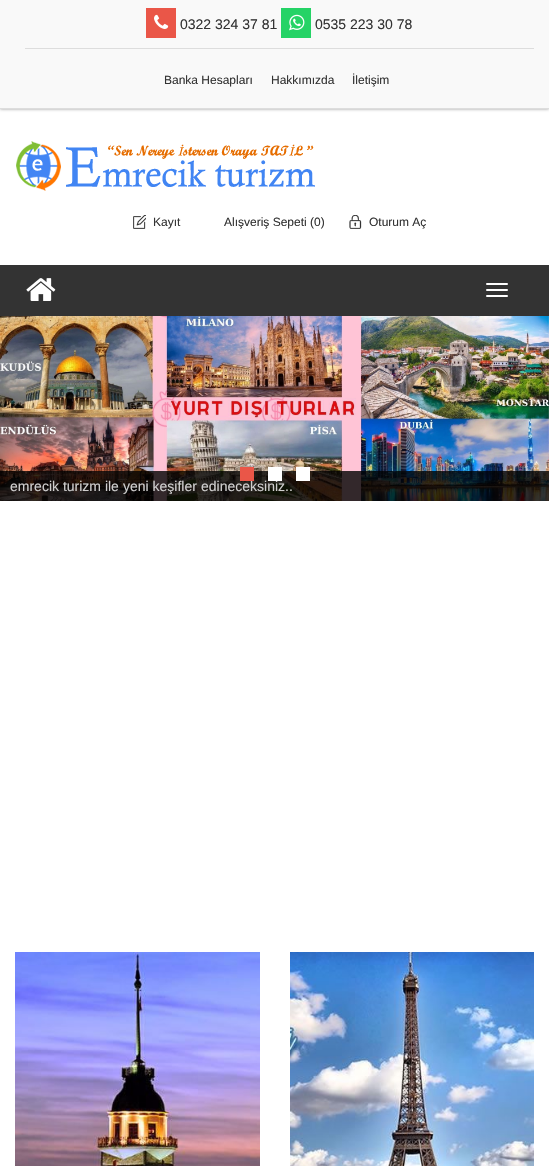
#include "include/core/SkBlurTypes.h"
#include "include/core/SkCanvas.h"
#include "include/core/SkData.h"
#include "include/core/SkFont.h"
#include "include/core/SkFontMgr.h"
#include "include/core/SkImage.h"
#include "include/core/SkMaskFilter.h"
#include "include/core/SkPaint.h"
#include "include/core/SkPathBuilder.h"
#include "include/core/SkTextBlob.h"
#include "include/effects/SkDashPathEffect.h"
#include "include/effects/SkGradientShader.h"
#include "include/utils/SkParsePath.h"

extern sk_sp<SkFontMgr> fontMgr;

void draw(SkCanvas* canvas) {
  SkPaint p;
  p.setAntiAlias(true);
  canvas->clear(SK_ColorWHITE);
  p.setColor(SkColorSetRGB(153, 153, 153));
  p.setMaskFilter(SkMaskFilter::MakeBlur(kNormal_SkBlurStyle, 1.5f));
  canvas->drawRect(SkRect::MakeLTRB(0, 0, 549, 109), p);
  p.setMaskFilter(nullptr);
  p.setColor(SkColorSetRGB(249, 249, 249));
  canvas->drawRect(SkRect::MakeLTRB(0, 0, 549, 108), p);
  p.setColor(SkColorSetRGB(221, 221, 221));
  canvas->drawRect(SkRect::MakeLTRB(0, 108, 549, 109), p);
  canvas->drawRect(SkRect::MakeLTRB(25, 48, 534, 49), p);
  p.setColor(SkColorSetRGB(234, 86, 72));
  canvas->drawRect(SkRect::MakeLTRB(146, 8, 176, 38), p);
  canvas->drawImageRect(SkImages::DeferredFromEncodedData(SkData::MakeFromFileName("images/1.png")), SkRect::MakeLTRB(154, 14, 169, 29), SkSamplingOptions());
  p.setColor(SkColorSetRGB(37, 211, 102));
  canvas->drawRect(SkRect::MakeLTRB(281, 8, 311, 38), p);
  canvas->drawImageRect(SkImages::DeferredFromEncodedData(SkData::MakeFromFileName("images/2.png")), SkRect::MakeLTRB(289, 14, 305, 31), SkSamplingOptions());
  canvas->drawImageRect(SkImages::DeferredFromEncodedData(SkData::MakeFromFileName("images/3.png")), SkRect::MakeLTRB(16, 141, 315, 191), SkSamplingOptions());
  canvas->drawImageRect(SkImages::DeferredFromEncodedData(SkData::MakeFromFileName("images/4.png")), SkRect::MakeLTRB(133, 215, 146, 229), SkSamplingOptions());
  canvas->drawImageRect(SkImages::DeferredFromEncodedData(SkData::MakeFromFileName("images/5.png")), SkRect::MakeLTRB(349, 215, 362, 229), SkSamplingOptions());
  p.setColor(SkColorSetRGB(51, 51, 51));
  canvas->drawRect(SkRect::MakeLTRB(0, 265, 549, 316), p);
  canvas->drawImageRect(SkImages::DeferredFromEncodedData(SkData::MakeFromFileName("images/6.png")), SkRect::MakeLTRB(26, 278, 56, 301), SkSamplingOptions());
  p.setColor(SK_ColorWHITE);
  canvas->drawRoundRect(SkRect::MakeLTRB(486, 283, 508, 285), 1, 1, p);
  canvas->drawRoundRect(SkRect::MakeLTRB(486, 289, 508, 291), 1, 1, p);
  canvas->drawRoundRect(SkRect::MakeLTRB(486, 295, 508, 297), 1, 1, p);
  canvas->drawImageRect(SkImages::DeferredFromEncodedData(SkData::MakeFromFileName("images/7.png")), SkRect::MakeLTRB(0, 316, 549, 501), SkSamplingOptions());
  p.setColor(SkColorSetARGB(204, 0, 0, 0));
  canvas->drawRect(SkRect::MakeLTRB(0, 471, 549, 501), p);
  p.setColor(SkColorSetARGB(51, 0, 0, 0));
  p.setMaskFilter(SkMaskFilter::MakeBlur(kNormal_SkBlurStyle, 0.5f));
  canvas->drawRect(SkRect::MakeLTRB(240, 467, 254, 481), p);
  p.setMaskFilter(nullptr);
  p.setMaskFilter(SkMaskFilter::MakeBlur(kNormal_SkBlurStyle, 0.5f));
  canvas->drawRect(SkRect::MakeLTRB(268, 467, 282, 481), p);
  p.setMaskFilter(nullptr);
  p.setMaskFilter(SkMaskFilter::MakeBlur(kNormal_SkBlurStyle, 0.5f));
  canvas->drawRect(SkRect::MakeLTRB(296, 467, 310, 481), p);
  p.setMaskFilter(nullptr);
  p.setColor(SK_ColorWHITE);
  canvas->drawRect(SkRect::MakeLTRB(296, 467, 310, 481), p);
  canvas->drawImageRect(SkImages::DeferredFromEncodedData(SkData::MakeFromFileName("images/8.png")), SkRect::MakeLTRB(15, 952, 260, 1166), SkSamplingOptions());
  canvas->drawImageRect(SkImages::DeferredFromEncodedData(SkData::MakeFromFileName("images/9.png")), SkRect::MakeLTRB(290, 952, 534, 1166), SkSamplingOptions());
  SkFont font1(fontMgr->matchFamilyStyle("Liberation Sans", SkFontStyle::Normal()), 14);
  font1.setSubpixel(true);
  p.setColor(SkColorSetRGB(51, 51, 51));
  canvas->drawString("0322 324 37 81", 180, 29, font1, p);
  canvas->drawString("0535 223 30 78", 315, 29, font1, p);
  SkFont font2(fontMgr->matchFamilyStyle("Liberation Sans", SkFontStyle::Normal()), 12);
  font2.setSubpixel(true);
  canvas->drawString("Banka Hesapları", 164, 84, font2, p);
  canvas->drawString("Hakkımızda", 271, 84, font2, p);
  canvas->drawString("İletişim", 352, 84, font2, p);
  canvas->drawString("Kayıt", 153, 226, font2, p);
  canvas->drawString("Alışveriş Sepeti (0)", 224, 226, font2, p);
  canvas->drawString("Oturum Aç", 369, 226, font2, p);
  p.setColor(SkColorSetRGB(208, 207, 207));
  canvas->drawString("emrecik turizm ile", 10, 491, font1, p);
  canvas->drawString("yeni keşifler", 123, 491, font1, p);
  canvas->drawString("edineceksiniz..", 201, 491, font1, p);
  p.setColor(SK_ColorWHITE);
  canvas->drawRect(SkRect::MakeLTRB(268, 467, 282, 481), p);
  p.setColor(SkColorSetRGB(234, 86, 72));
  canvas->drawRect(SkRect::MakeLTRB(240, 467, 254, 481), p);
}
